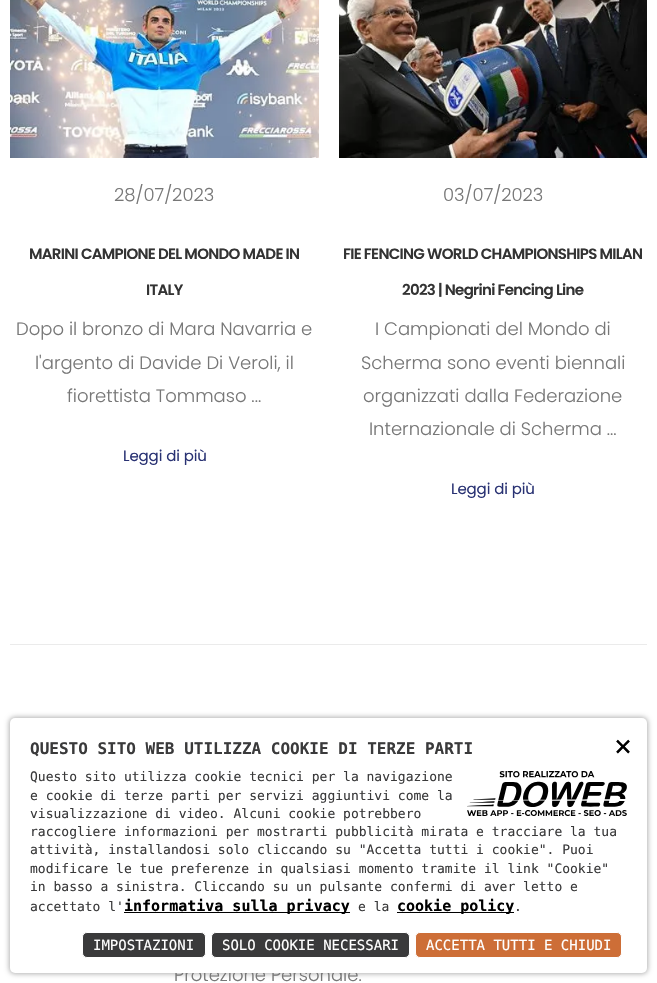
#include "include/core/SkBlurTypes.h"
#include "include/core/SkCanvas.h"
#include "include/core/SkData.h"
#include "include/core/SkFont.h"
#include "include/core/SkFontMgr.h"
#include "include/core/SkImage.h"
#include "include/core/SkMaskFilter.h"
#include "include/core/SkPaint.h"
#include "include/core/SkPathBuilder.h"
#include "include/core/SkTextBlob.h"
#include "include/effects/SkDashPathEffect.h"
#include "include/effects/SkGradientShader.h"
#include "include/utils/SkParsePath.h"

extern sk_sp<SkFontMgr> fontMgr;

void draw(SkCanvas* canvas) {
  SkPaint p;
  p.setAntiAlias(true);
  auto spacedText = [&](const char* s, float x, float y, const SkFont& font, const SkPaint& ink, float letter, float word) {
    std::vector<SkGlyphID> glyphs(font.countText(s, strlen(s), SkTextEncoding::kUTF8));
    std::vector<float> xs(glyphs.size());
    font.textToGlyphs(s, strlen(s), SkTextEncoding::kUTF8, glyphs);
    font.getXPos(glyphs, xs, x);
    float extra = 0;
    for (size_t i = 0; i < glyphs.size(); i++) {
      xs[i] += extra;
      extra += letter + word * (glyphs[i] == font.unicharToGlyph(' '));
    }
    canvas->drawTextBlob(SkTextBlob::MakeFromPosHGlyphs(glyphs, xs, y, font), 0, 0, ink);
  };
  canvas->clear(SK_ColorWHITE);
  canvas->drawImageRect(SkImages::DeferredFromEncodedData(SkData::MakeFromFileName("images/1.png")), SkRect::MakeLTRB(10, 0, 319, 158), SkSamplingOptions());
  canvas->drawImageRect(SkImages::DeferredFromEncodedData(SkData::MakeFromFileName("images/2.png")), SkRect::MakeLTRB(339, 0, 647, 158), SkSamplingOptions());
  p.setColor(SkColorSetRGB(235, 235, 235));
  canvas->drawRect(SkRect::MakeLTRB(10, 644, 647, 645), p);
  p.setColor(SkColorSetARGB(77, 0, 0, 0));
  p.setMaskFilter(SkMaskFilter::MakeBlur(kNormal_SkBlurStyle, 2.5f));
  canvas->drawRoundRect(SkRect::MakeLTRB(9, 717, 648, 974), 6, 6, p);
  p.setMaskFilter(nullptr);
  SkFont font1(fontMgr->matchFamilyStyle("Poppins", SkFontStyle(300, SkFontStyle::kNormal_Width, SkFontStyle::kUpright_Slant)), 18);
  font1.setSubpixel(true);
  p.setColor(SkColorSetRGB(119, 119, 119));
  canvas->drawString("28/07/2023", 114, 201, font1, p);
  SkFont font2(fontMgr->matchFamilyStyle("Poppins", SkFontStyle(600, SkFontStyle::kNormal_Width, SkFontStyle::kUpright_Slant)), 15);
  font2.setSubpixel(true);
  p.setColor(SkColorSetRGB(51, 51, 51));
  spacedText("MARINI CAMPIONE DEL MONDO MADE IN", 29, 259, font2, p, -0.7f, 0);
  spacedText("ITALY", 146, 295, font2, p, -0.7f, 0);
  p.setColor(SkColorSetRGB(119, 119, 119));
  canvas->drawString("Dopo il bronzo di Mara Navarria e", 16, 335, font1, p);
  canvas->drawString("l'argento di Davide Di Veroli, il", 35, 369, font1, p);
  canvas->drawString("fiorettista Tommaso ...", 67, 402, font1, p);
  SkFont font3(fontMgr->matchFamilyStyle("Poppins", SkFontStyle::Normal()), 15);
  font3.setSubpixel(true);
  p.setColor(SkColorSetRGB(41, 50, 115));
  spacedText("Leggi di più", 123, 461, font3, p, -0.1f, 0);
  p.setColor(SkColorSetRGB(119, 119, 119));
  canvas->drawString("03/07/2023", 443, 201, font1, p);
  p.setColor(SkColorSetRGB(51, 51, 51));
  spacedText("FIE FENCING WORLD CHAMPIONSHIPS MILAN", 343, 259, font2, p, -0.7f, 0);
  spacedText("2023 | Negrini Fencing Line", 402, 295, font2, p, -0.7f, 0);
  p.setColor(SkColorSetRGB(119, 119, 119));
  canvas->drawString("I Campionati del Mondo di", 375, 335, font1, p);
  canvas->drawString("Scherma sono eventi biennali", 361, 369, font1, p);
  canvas->drawString("organizzati dalla Federazione", 363, 402, font1, p);
  canvas->drawString("Internazionale di Scherma ...", 369, 435, font1, p);
  p.setColor(SkColorSetRGB(41, 50, 115));
  spacedText("Leggi di più", 451, 494, font3, p, -0.1f, 0);
  p.setColor(SkColorSetRGB(119, 119, 119));
  canvas->drawString("Protezione Personale.", 174, 981, font1, p);
  p.setColor(SK_ColorWHITE);
  canvas->drawRoundRect(SkRect::MakeLTRB(10, 718, 647, 973), 5, 5, p);
  SkFont font4(fontMgr->matchFamilyStyle("DejaVu Sans Mono", SkFontStyle::Bold()), 16);
  font4.setSubpixel(true);
  p.setColor(SkColorSetRGB(58, 58, 59));
  canvas->drawString("QUESTO SITO WEB UTILIZZA COOKIE DI TERZE PARTI", 30, 754, font4, p);
  SkFont font5(fontMgr->matchFamilyStyle("DejaVu Sans Mono", SkFontStyle::Normal()), 30);
  font5.setSubpixel(true);
  p.setColor(SK_ColorBLACK);
  canvas->drawString("×", 614, 756, font5, p);
  SkFont font6(fontMgr->matchFamilyStyle("DejaVu Sans Mono", SkFontStyle::Normal()), 13);
  font6.setSubpixel(true);
  p.setColor(SkColorSetRGB(58, 58, 59));
  canvas->drawString("Questo sito utilizza cookie tecnici per la navigazione", 30, 781, font6, p);
  canvas->drawImageRect(SkImages::DeferredFromEncodedData(SkData::MakeFromFileName("images/3.png")), SkRect::MakeLTRB(467, 771, 627, 816), SkSamplingOptions());
  canvas->drawString("e cookie di terze parti per servizi aggiuntivi come la", 30, 800, font6, p);
  canvas->drawString("visualizzazione di video. Alcuni cookie potrebbero", 30, 818, font6, p);
  canvas->drawString("raccogliere informazioni per mostrarti pubblicità mirata e tracciare la tua", 30, 836, font6, p);
  canvas->drawString("attività, installandosi solo cliccando su \"Accetta tutti i cookie\". Puoi", 30, 854, font6, p);
  canvas->drawString("modificare le tue preferenze in qualsiasi momento tramite il link \"Cookie\"", 30, 873, font6, p);
  canvas->drawString("in basso a sinistra. Cliccando su un pulsante confermi di aver letto e", 30, 891, font6, p);
  canvas->drawString("accettato l'", 30, 911, font6, p);
  p.setColor(SK_ColorBLACK);
  canvas->drawRect(SkRect::MakeLTRB(124, 912, 350, 913), p);
  SkFont font7(fontMgr->matchFamilyStyle("DejaVu Sans Mono", SkFontStyle::Bold()), 15);
  font7.setSubpixel(true);
  canvas->drawString("informativa sulla privacy", 124, 911, font7, p);
  p.setColor(SkColorSetRGB(58, 58, 59));
  canvas->drawString("e la", 358, 911, font6, p);
  p.setColor(SK_ColorBLACK);
  canvas->drawRect(SkRect::MakeLTRB(397, 912, 514, 913), p);
  canvas->drawString("cookie policy", 397, 911, font7, p);
  p.setColor(SkColorSetRGB(58, 58, 59));
  canvas->drawString(".", 514, 911, font6, p);
  canvas->drawRoundRect(SkRect::MakeLTRB(82.5f, 932.5f, 205.5f, 957.5f), 4.5f, 4.5f, p);
  p.setStyle(SkPaint::kStroke_Style);
  p.setStrokeWidth(1);
  p.setColor(SK_ColorWHITE);
  canvas->drawRoundRect(SkRect::MakeLTRB(82.5f, 932.5f, 205.5f, 957.5f), 4.5f, 4.5f, p);
  SkFont font8(fontMgr->matchFamilyStyle("DejaVu Sans Mono", SkFontStyle::Normal()), 14);
  font8.setSubpixel(true);
  p.setStyle(SkPaint::kFill_Style);
  canvas->drawString("IMPOSTAZIONI", 93, 950, font8, p);
  p.setColor(SkColorSetRGB(58, 58, 59));
  canvas->drawRoundRect(SkRect::MakeLTRB(211.5f, 932.5f, 409.5f, 957.5f), 4.5f, 4.5f, p);
  p.setStyle(SkPaint::kStroke_Style);
  p.setColor(SK_ColorWHITE);
  canvas->drawRoundRect(SkRect::MakeLTRB(211.5f, 932.5f, 409.5f, 957.5f), 4.5f, 4.5f, p);
  p.setStyle(SkPaint::kFill_Style);
  canvas->drawString("SOLO COOKIE NECESSARI", 222, 950, font8, p);
  p.setColor(SkColorSetRGB(205, 110, 55));
  canvas->drawRoundRect(SkRect::MakeLTRB(415.5f, 932.5f, 621.5f, 957.5f), 4.5f, 4.5f, p);
  p.setStyle(SkPaint::kStroke_Style);
  p.setColor(SK_ColorWHITE);
  canvas->drawRoundRect(SkRect::MakeLTRB(415.5f, 932.5f, 621.5f, 957.5f), 4.5f, 4.5f, p);
  p.setStyle(SkPaint::kFill_Style);
  canvas->drawString("ACCETTA TUTTI E CHIUDI", 426, 950, font8, p);
}
